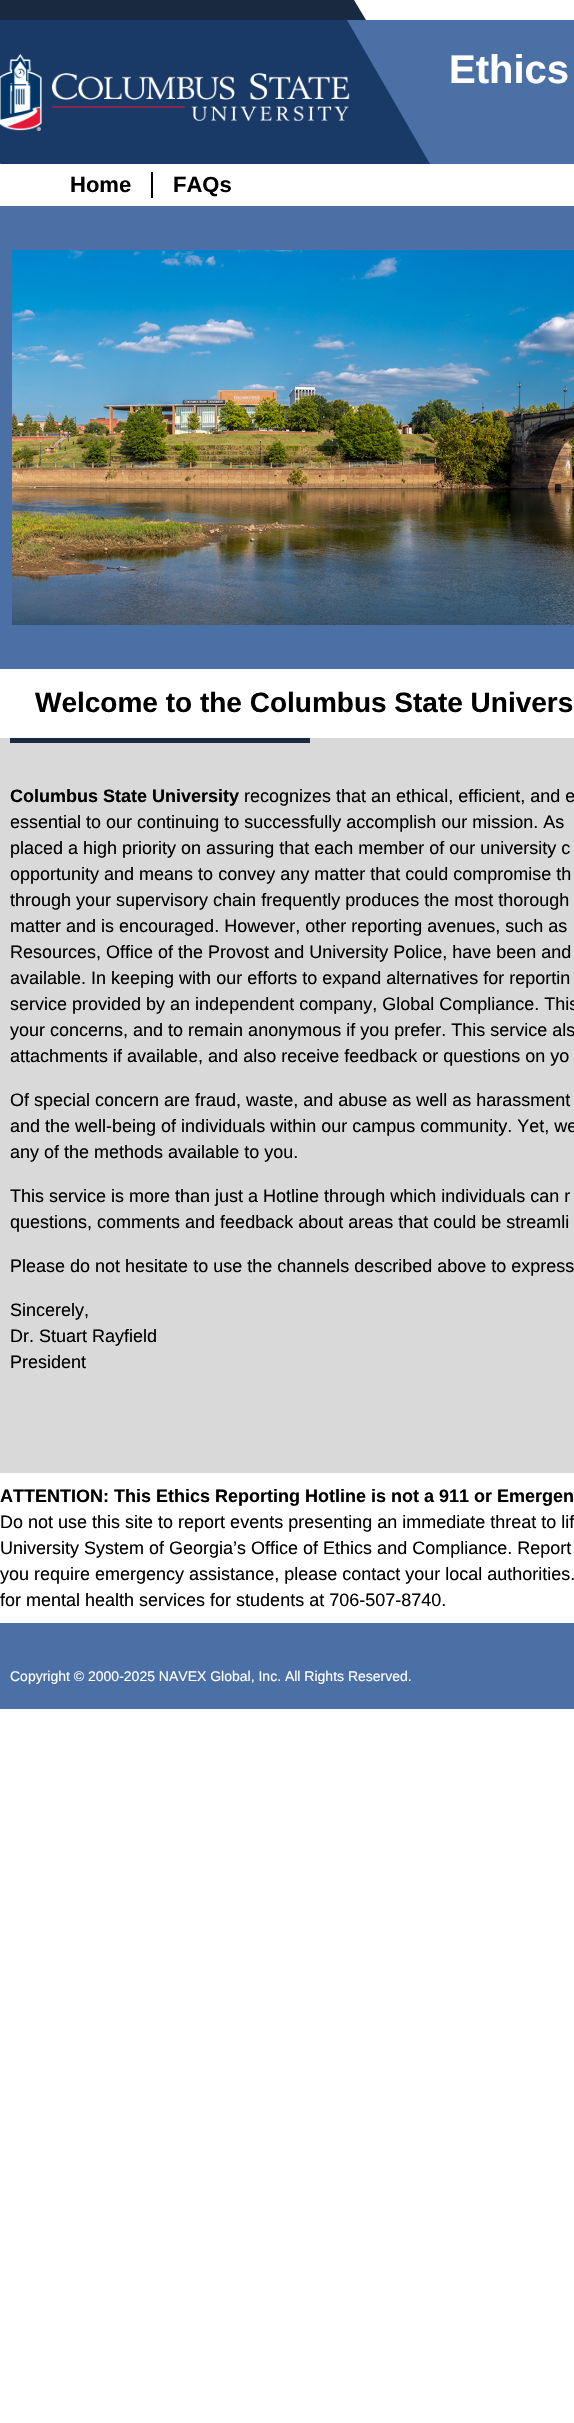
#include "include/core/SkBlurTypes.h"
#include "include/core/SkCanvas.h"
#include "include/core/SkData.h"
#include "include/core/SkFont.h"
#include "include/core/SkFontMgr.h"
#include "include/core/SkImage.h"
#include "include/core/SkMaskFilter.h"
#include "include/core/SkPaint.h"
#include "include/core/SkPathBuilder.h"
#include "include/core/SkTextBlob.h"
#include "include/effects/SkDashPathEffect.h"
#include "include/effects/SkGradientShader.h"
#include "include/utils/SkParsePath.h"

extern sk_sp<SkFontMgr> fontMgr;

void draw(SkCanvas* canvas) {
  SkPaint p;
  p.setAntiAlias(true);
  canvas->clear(SK_ColorWHITE);
  p.setColor(SkColorSetRGB(25, 41, 64));
  canvas->drawPath(SkPathBuilder().moveTo(-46, 0).lineTo(354, 0).lineTo(366, 20).lineTo(-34, 20).close().detach(), p);
  p.setColor(SkColorSetRGB(75, 112, 166));
  canvas->drawRect(SkRect::MakeLTRB(0, 20, 574, 164), p);
  p.setColor(SkColorSetRGB(25, 57, 102));
  canvas->drawPath(SkPathBuilder().moveTo(-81, 20).lineTo(347, 20).lineTo(430, 164).lineTo(1, 164).close().detach(), p);
  canvas->drawImageRect(SkImages::DeferredFromEncodedData(SkData::MakeFromFileName("images/1.png")), SkRect::MakeLTRB(0, 54, 350, 131), SkSamplingOptions());
  p.setColor(SK_ColorBLACK);
  canvas->drawRect(SkRect::MakeLTRB(151, 172, 153, 198), p);
  p.setColor(SkColorSetRGB(75, 112, 166));
  canvas->drawRect(SkRect::MakeLTRB(0, 206, 574, 669), p);
  canvas->drawImageRect(SkImages::DeferredFromEncodedData(SkData::MakeFromFileName("images/2.png")), SkRect::MakeLTRB(12, 250, 574, 625), SkSamplingOptions());
  p.setColor(SkColorSetRGB(217, 217, 217));
  canvas->drawRect(SkRect::MakeLTRB(0, 738, 574, 1473), p);
  p.setColor(SkColorSetRGB(25, 41, 64));
  canvas->drawRect(SkRect::MakeLTRB(10, 738, 310, 743), p);
  p.setColor(SkColorSetRGB(75, 112, 166));
  canvas->drawRect(SkRect::MakeLTRB(0, 1623, 574, 1709), p);
  SkFont font1(fontMgr->matchFamilyStyle("Liberation Sans", SkFontStyle::Bold()), 40);
  font1.setSubpixel(true);
  p.setColor(SK_ColorWHITE);
  canvas->drawString("Ethics", 449, 83, font1, p);
  SkFont font2(fontMgr->matchFamilyStyle("Liberation Sans", SkFontStyle::Bold()), 22);
  font2.setSubpixel(true);
  p.setColor(SK_ColorBLACK);
  canvas->drawString("Home", 70, 192, font2, p);
  canvas->drawString("FAQs", 173, 192, font2, p);
  SkFont font3(fontMgr->matchFamilyStyle("Liberation Sans", SkFontStyle::Bold()), 28);
  font3.setSubpixel(true);
  canvas->drawString("Welcome to the Columbus State Univers", 35, 712, font3, p);
  SkFont font4(fontMgr->matchFamilyStyle("Liberation Sans", SkFontStyle::Bold()), 18);
  font4.setSubpixel(true);
  canvas->drawString("Columbus State University", 10, 802, font4, p);
  SkFont font5(fontMgr->matchFamilyStyle("Liberation Sans", SkFontStyle::Normal()), 18);
  font5.setSubpixel(true);
  canvas->drawString("recognizes that an ethical, efficient, and e", 244, 802, font5, p);
  canvas->drawString("essential to our continuing to successfully accomplish our mission. As", 10, 828, font5, p);
  canvas->drawString("placed a high priority on assuring that each member of our university c", 10, 854, font5, p);
  canvas->drawString("opportunity and means to convey any matter that could compromise th", 10, 880, font5, p);
  canvas->drawString("through your supervisory chain frequently produces the most thorough", 10, 906, font5, p);
  canvas->drawString("matter and is encouraged. However, other reporting avenues, such as", 10, 932, font5, p);
  canvas->drawString("Resources, Office of the Provost and University Police, have been and", 10, 958, font5, p);
  canvas->drawString("available. In keeping with our efforts to expand alternatives for reportin", 10, 984, font5, p);
  canvas->drawString("service provided by an independent company, Global Compliance. This", 10, 1010, font5, p);
  canvas->drawString("your concerns, and to remain anonymous if you prefer. This service als", 10, 1036, font5, p);
  canvas->drawString("attachments if available, and also receive feedback or questions on yo", 10, 1062, font5, p);
  canvas->drawString("Of special concern are fraud, waste, and abuse as well as harassment", 10, 1106, font5, p);
  canvas->drawString("and the well-being of individuals within our campus community. Yet, we", 10, 1132, font5, p);
  canvas->drawString("any of the methods available to you.", 10, 1158, font5, p);
  canvas->drawString("This service is more than just a Hotline through which individuals can r", 10, 1202, font5, p);
  canvas->drawString("questions, comments and feedback about areas that could be streamli", 10, 1228, font5, p);
  canvas->drawString("Please do not hesitate to use the channels described above to express", 10, 1272, font5, p);
  canvas->drawString("Sincerely,", 10, 1316, font5, p);
  canvas->drawString("Dr. Stuart Rayfield", 10, 1342, font5, p);
  canvas->drawString("President", 10, 1368, font5, p);
  canvas->drawString("ATTENTION: This Ethics Reporting Hotline is not a 911 or Emergen", 0, 1502, font4, p);
  canvas->drawString("Do not use this site to report events presenting an immediate threat to lif", 0, 1528, font5, p);
  canvas->drawString("University System of Georgia’s Office of Ethics and Compliance. Report", 0, 1554, font5, p);
  canvas->drawString("you require emergency assistance, please contact your local authorities.", 0, 1580, font5, p);
  canvas->drawString("for mental health services for students at 706-507-8740.", 0, 1606, font5, p);
  SkFont font6(fontMgr->matchFamilyStyle("Liberation Sans", SkFontStyle::Normal()), 14);
  font6.setSubpixel(true);
  p.setColor(SK_ColorWHITE);
  canvas->drawString("Copyright © 2000-2025 NAVEX Global, Inc. All Rights Reserved.", 10, 1681, font6, p);
}
